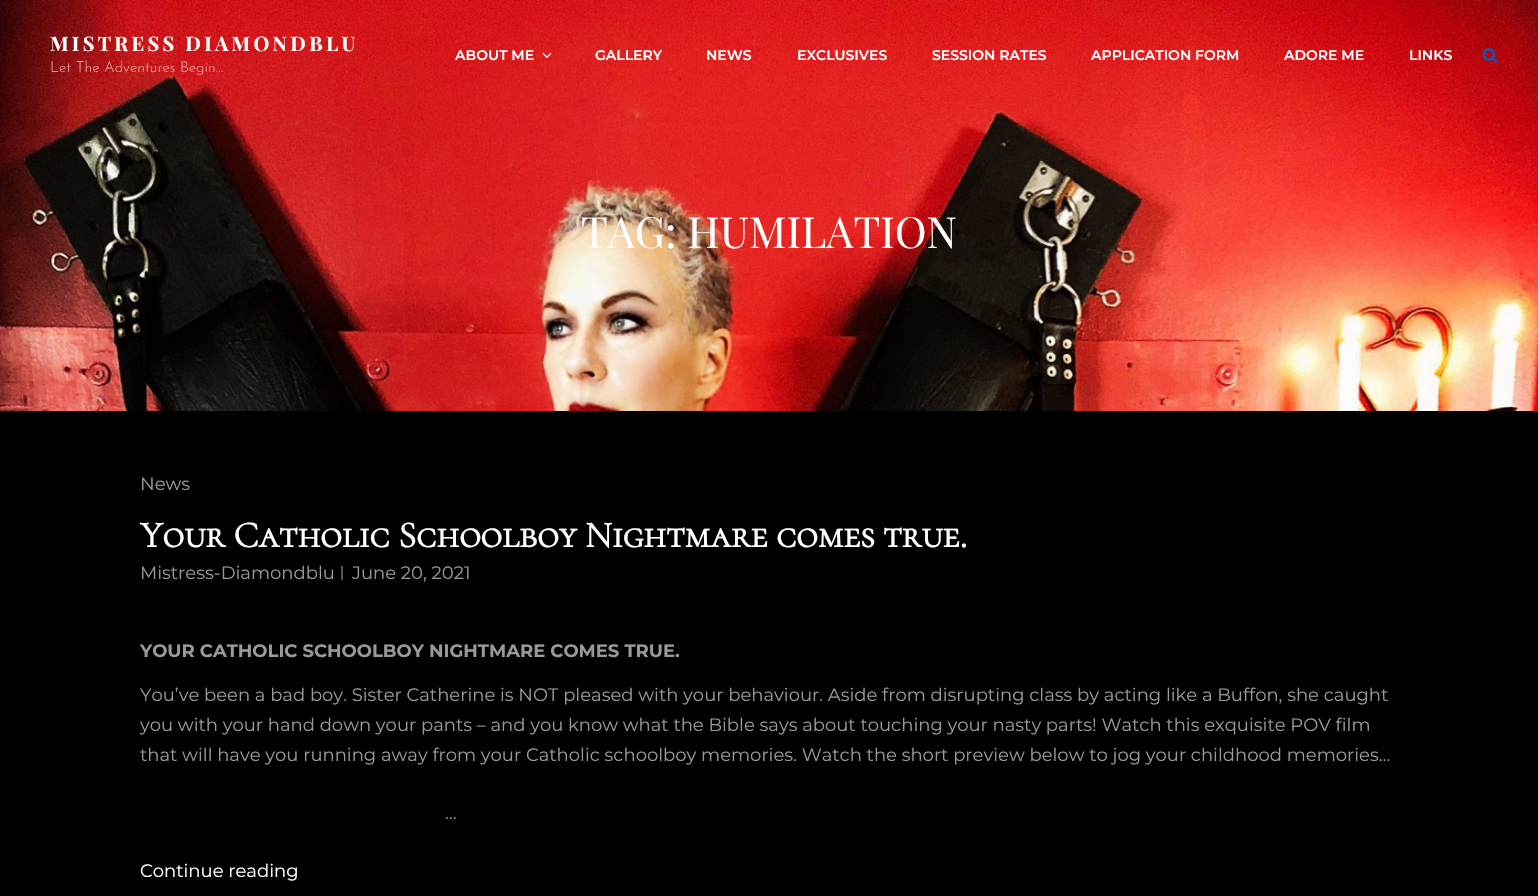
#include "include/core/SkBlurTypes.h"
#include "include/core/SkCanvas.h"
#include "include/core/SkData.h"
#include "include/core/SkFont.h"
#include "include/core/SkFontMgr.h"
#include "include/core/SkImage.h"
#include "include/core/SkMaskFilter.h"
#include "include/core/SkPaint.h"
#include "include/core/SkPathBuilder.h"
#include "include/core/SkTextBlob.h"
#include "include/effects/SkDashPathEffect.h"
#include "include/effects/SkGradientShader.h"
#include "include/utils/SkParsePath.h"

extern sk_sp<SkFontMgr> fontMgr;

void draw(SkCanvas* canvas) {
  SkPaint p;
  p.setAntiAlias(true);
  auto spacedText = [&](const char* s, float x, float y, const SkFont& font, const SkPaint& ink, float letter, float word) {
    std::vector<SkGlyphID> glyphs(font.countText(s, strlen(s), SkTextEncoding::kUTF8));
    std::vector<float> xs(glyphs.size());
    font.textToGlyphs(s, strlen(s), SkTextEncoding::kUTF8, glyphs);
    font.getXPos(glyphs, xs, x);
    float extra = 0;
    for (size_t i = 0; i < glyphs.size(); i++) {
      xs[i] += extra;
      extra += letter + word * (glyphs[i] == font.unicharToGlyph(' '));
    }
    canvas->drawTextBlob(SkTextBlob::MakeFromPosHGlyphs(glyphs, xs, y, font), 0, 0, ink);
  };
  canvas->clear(SK_ColorBLACK);
  canvas->drawImageRect(SkImages::DeferredFromEncodedData(SkData::MakeFromFileName("images/3.png")), SkRect::MakeLTRB(0, 0, 1538, 411), SkSamplingOptions());
  canvas->drawImageRect(SkImages::DeferredFromEncodedData(SkData::MakeFromFileName("images/1.png")), SkRect::MakeLTRB(542, 52, 552, 58), SkSamplingOptions());
  canvas->drawImageRect(SkImages::DeferredFromEncodedData(SkData::MakeFromFileName("images/2.png")), SkRect::MakeLTRB(1482, 48, 1498, 63), SkSamplingOptions());
  p.setColor(SkColorSetRGB(85, 85, 85));
  canvas->drawRect(SkRect::MakeLTRB(341, 566, 343, 580), p);
  SkFont font1(fontMgr->matchFamilyStyle("Playfair Display", SkFontStyle::Bold()), 20);
  font1.setSubpixel(true);
  p.setColor(SK_ColorWHITE);
  spacedText("MISTRESS DIAMONDBLU", 50, 51, font1, p, 3.3f, 0);
  SkFont font2(fontMgr->matchFamilyStyle("Josefin Sans", SkFontStyle(300, SkFontStyle::kNormal_Width, SkFontStyle::kUpright_Slant)), 15);
  font2.setSubpixel(true);
  p.setColor(SkColorSetRGB(227, 162, 163));
  canvas->drawString("Let The Adventures Begin…", 50, 72, font2, p);
  SkFont font3(fontMgr->matchFamilyStyle("Montserrat", SkFontStyle(600, SkFontStyle::kNormal_Width, SkFontStyle::kUpright_Slant)), 14);
  font3.setSubpixel(true);
  p.setColor(SK_ColorWHITE);
  canvas->drawString("ABOUT ME", 455, 60, font3, p);
  canvas->drawString("GALLERY", 595, 60, font3, p);
  canvas->drawString("NEWS", 706, 60, font3, p);
  canvas->drawString("EXCLUSIVES", 797, 60, font3, p);
  canvas->drawString("SESSION RATES", 932, 60, font3, p);
  canvas->drawString("APPLICATION FORM", 1091, 60, font3, p);
  canvas->drawString("ADORE ME", 1284, 60, font3, p);
  canvas->drawString("LINKS", 1409, 60, font3, p);
  SkFont font4(fontMgr->matchFamilyStyle("Playfair Display", SkFontStyle::Normal()), 43);
  font4.setSubpixel(true);
  canvas->drawString("TAG: HUMILATION", 581, 248, font4, p);
  SkFont font5(fontMgr->matchFamilyStyle("Montserrat", SkFontStyle::Normal()), 18);
  font5.setSubpixel(true);
  p.setColor(SkColorSetRGB(153, 153, 153));
  canvas->drawString("News", 140, 490, font5, p);
  SkFont font6(fontMgr->matchFamilyStyle("Cormorant SC", SkFontStyle::Bold()), 37);
  font6.setSubpixel(true);
  p.setColor(SK_ColorWHITE);
  canvas->drawString("Your Catholic Schoolboy Nightmare comes true.", 140, 547, font6, p);
  p.setColor(SkColorSetRGB(153, 153, 153));
  canvas->drawString("Mistress-Diamondblu", 140, 579, font5, p);
  canvas->drawString("June 20, 2021", 352, 579, font5, p);
  SkFont font7(fontMgr->matchFamilyStyle("Montserrat", SkFontStyle::Bold()), 18);
  font7.setSubpixel(true);
  canvas->drawString("YOUR CATHOLIC SCHOOLBOY NIGHTMARE COMES TRUE.", 140, 657, font7, p);
  canvas->drawString("You’ve been a bad boy. Sister Catherine is NOT pleased with your behaviour. Aside from disrupting class by acting like a Buffon, she caught", 140, 701, font5, p);
  canvas->drawString("you with your hand down your pants – and you know what the Bible says about touching your nasty parts! Watch this exquisite POV film", 140, 731, font5, p);
  canvas->drawString("that will have you running away from your Catholic schoolboy memories. Watch the short preview below to jog your childhood memories…", 140, 761, font5, p);
  canvas->drawString("…", 445, 819, font5, p);
  p.setColor(SK_ColorWHITE);
  canvas->drawString("Continue reading", 140, 877, font5, p);
}
